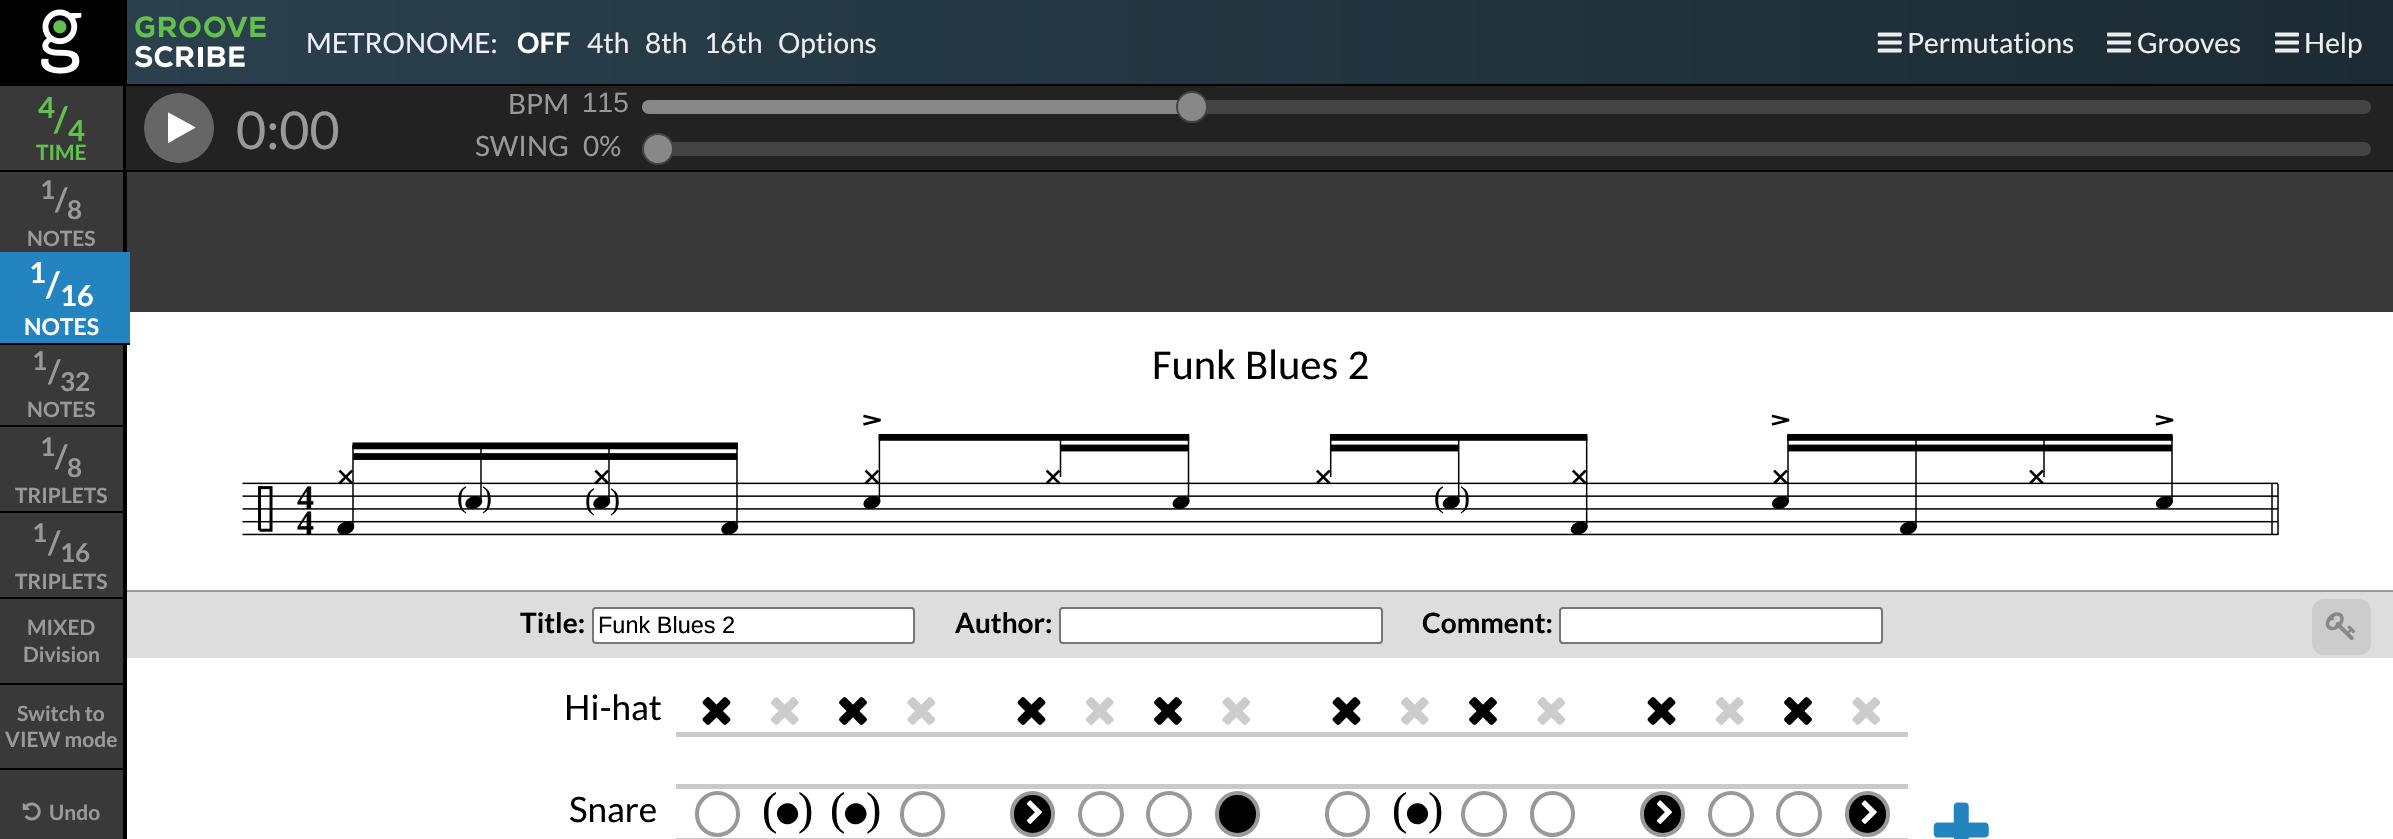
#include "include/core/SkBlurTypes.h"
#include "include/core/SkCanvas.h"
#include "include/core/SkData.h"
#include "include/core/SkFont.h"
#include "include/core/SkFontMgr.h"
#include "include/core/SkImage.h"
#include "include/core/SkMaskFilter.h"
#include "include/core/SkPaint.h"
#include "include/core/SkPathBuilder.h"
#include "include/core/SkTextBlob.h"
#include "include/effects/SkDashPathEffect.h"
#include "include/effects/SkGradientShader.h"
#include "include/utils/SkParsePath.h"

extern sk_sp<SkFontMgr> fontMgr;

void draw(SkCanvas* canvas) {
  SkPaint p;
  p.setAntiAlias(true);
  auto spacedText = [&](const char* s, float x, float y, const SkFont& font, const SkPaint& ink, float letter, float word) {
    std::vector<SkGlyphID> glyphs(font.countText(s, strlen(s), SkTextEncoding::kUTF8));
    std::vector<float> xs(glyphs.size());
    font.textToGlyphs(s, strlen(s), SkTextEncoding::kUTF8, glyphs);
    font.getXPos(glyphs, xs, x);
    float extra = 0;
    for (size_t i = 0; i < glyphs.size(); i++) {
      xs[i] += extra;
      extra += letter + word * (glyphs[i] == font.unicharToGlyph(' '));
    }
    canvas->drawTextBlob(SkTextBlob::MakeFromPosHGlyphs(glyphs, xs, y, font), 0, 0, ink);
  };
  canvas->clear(SkColorSetRGB(57, 57, 57));
  {
    const SkColor colors[] = {SkColorSetRGB(42, 64, 77), SkColorSetRGB(28, 43, 51)};
    const float stops[] = {0, 1};
    const SkPoint ends[] = {{126, 42}, {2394, 42}};
    p.setShader(SkGradientShader::MakeLinear(ends, colors, stops, 2, SkTileMode::kClamp));
    p.setAlpha(255);
  }
  canvas->drawRect(SkRect::MakeLTRB(127, 0, 2393, 84), p);
  p.setShader(nullptr);
  p.setColor(SK_ColorBLACK);
  canvas->drawRect(SkRect::MakeLTRB(126, 84, 2393, 86), p);
  canvas->drawImageRect(SkImages::DeferredFromEncodedData(SkData::MakeFromFileName("images/1.png")), SkRect::MakeLTRB(135, 16, 266, 68), SkSamplingOptions());
  canvas->drawImageRect(SkImages::DeferredFromEncodedData(SkData::MakeFromFileName("images/2.png")), SkRect::MakeLTRB(1877, 32, 1902, 53), SkSamplingOptions());
  canvas->drawImageRect(SkImages::DeferredFromEncodedData(SkData::MakeFromFileName("images/3.png")), SkRect::MakeLTRB(2107, 32, 2131, 53), SkSamplingOptions());
  canvas->drawImageRect(SkImages::DeferredFromEncodedData(SkData::MakeFromFileName("images/4.png")), SkRect::MakeLTRB(2275, 32, 2299, 53), SkSamplingOptions());
  p.setColor(SkColorSetRGB(153, 153, 153));
  canvas->drawRect(SkRect::MakeLTRB(126, 590, 2393, 592), p);
  p.setColor(SK_ColorBLACK);
  canvas->drawRect(SkRect::MakeLTRB(123, 0, 127, 839), p);
  canvas->drawRect(SkRect::MakeLTRB(0, 0, 123, 86), p);
  canvas->drawImageRect(SkImages::DeferredFromEncodedData(SkData::MakeFromFileName("images/5.png")), SkRect::MakeLTRB(41, 9, 82, 74), SkSamplingOptions());
  canvas->drawRect(SkRect::MakeLTRB(0, 170, 123, 172), p);
  p.setColor(SK_ColorWHITE);
  canvas->drawRect(SkRect::MakeLTRB(127, 312, 2393, 590), p);
  p.setColor(SkColorSetRGB(36, 132, 192));
  canvas->drawRect(SkRect::MakeLTRB(0, 252, 130, 343), p);
  p.setColor(SK_ColorBLACK);
  canvas->drawRect(SkRect::MakeLTRB(0, 343, 130, 345), p);
  canvas->drawRect(SkRect::MakeLTRB(0, 425, 123, 427), p);
  canvas->drawRect(SkRect::MakeLTRB(0, 511, 123, 513), p);
  canvas->drawRect(SkRect::MakeLTRB(0, 597, 123, 599), p);
  canvas->drawRect(SkRect::MakeLTRB(0, 683, 123, 685), p);
  canvas->drawRect(SkRect::MakeLTRB(0, 768, 123, 770), p);
  canvas->drawImageRect(SkImages::DeferredFromEncodedData(SkData::MakeFromFileName("images/6.png")), SkRect::MakeLTRB(22, 802, 41, 821), SkSamplingOptions());
  canvas->drawRect(SkRect::MakeLTRB(126, 170, 2393, 172), p);
  p.setColor(SkColorSetRGB(34, 34, 34));
  canvas->drawRect(SkRect::MakeLTRB(126, 86, 2393, 170), p);
  p.setColor(SkColorSetRGB(102, 102, 102));
  canvas->drawCircle(179, 128, 35, p);
  p.setColor(SK_ColorWHITE);
  canvas->drawPath(SkPathBuilder().moveTo(195, 128).lineTo(173.5f, 140).cubicTo(173, 140.5f, 169, 143.5f, 168, 142.5f).lineTo(168, 113).lineTo(168.5f, 112.5f).lineTo(195, 127).lineTo(195.5f, 127.5f).close().detach(), p);
  p.setColor(SkColorSetRGB(136, 136, 136));
  canvas->drawPath(SkPathBuilder().moveTo(649, 100).lineTo(1195, 100).lineTo(1195, 114).lineTo(649, 114).cubicTo(645, 114, 642, 111, 642, 107).cubicTo(642, 103, 645, 100, 649, 100).close().detach(), p);
  p.setColor(SkColorSetRGB(68, 68, 68));
  canvas->drawPath(SkPathBuilder().moveTo(1195, 100).lineTo(2364, 100).cubicTo(2368, 100, 2371, 103, 2371, 107).cubicTo(2371, 111, 2368, 114, 2364, 114).lineTo(1195, 114).close().detach(), p);
  p.setColor(SkColorSetRGB(136, 136, 136));
  canvas->drawCircle(1192, 107, 15, p);
  p.setStyle(SkPaint::kStroke_Style);
  p.setStrokeWidth(2);
  p.setColor(SkColorSetRGB(68, 68, 68));
  canvas->drawCircle(1192, 107, 15, p);
  p.setStyle(SkPaint::kFill_Style);
  canvas->drawRoundRect(SkRect::MakeLTRB(642, 142, 2371, 156), 7, 7, p);
  p.setColor(SkColorSetRGB(136, 136, 136));
  canvas->drawCircle(658, 149, 15, p);
  p.setStyle(SkPaint::kStroke_Style);
  p.setColor(SkColorSetRGB(68, 68, 68));
  canvas->drawCircle(658, 149, 15, p);
  canvas->drawImageRect(SkImages::DeferredFromEncodedData(SkData::MakeFromFileName("images/7.png")), SkRect::MakeLTRB(242, 414, 2279, 536), SkSamplingOptions());
  p.setStyle(SkPaint::kFill_Style);
  p.setColor(SkColorSetRGB(221, 221, 221));
  canvas->drawRect(SkRect::MakeLTRB(127, 592, 2393, 658), p);
  p.setColor(SK_ColorWHITE);
  canvas->drawRoundRect(SkRect::MakeLTRB(593, 608, 914, 643), 3, 3, p);
  p.setStyle(SkPaint::kStroke_Style);
  p.setColor(SkColorSetRGB(118, 118, 118));
  canvas->drawRoundRect(SkRect::MakeLTRB(593, 608, 914, 643), 3, 3, p);
  p.setStyle(SkPaint::kFill_Style);
  p.setColor(SK_ColorWHITE);
  canvas->drawRoundRect(SkRect::MakeLTRB(1060, 608, 1382, 643), 3, 3, p);
  p.setStyle(SkPaint::kStroke_Style);
  p.setColor(SkColorSetRGB(118, 118, 118));
  canvas->drawRoundRect(SkRect::MakeLTRB(1060, 608, 1382, 643), 3, 3, p);
  p.setStyle(SkPaint::kFill_Style);
  p.setColor(SK_ColorWHITE);
  canvas->drawRoundRect(SkRect::MakeLTRB(1560, 608, 1882, 643), 3, 3, p);
  p.setStyle(SkPaint::kStroke_Style);
  p.setColor(SkColorSetRGB(118, 118, 118));
  canvas->drawRoundRect(SkRect::MakeLTRB(1560, 608, 1882, 643), 3, 3, p);
  p.setStyle(SkPaint::kFill_Style);
  p.setColor(SkColorSetRGB(204, 204, 204));
  canvas->drawRoundRect(SkRect::MakeLTRB(2313, 600, 2370, 654), 11, 11, p);
  p.setStyle(SkPaint::kStroke_Style);
  canvas->drawRoundRect(SkRect::MakeLTRB(2313, 600, 2370, 654), 11, 11, p);
  canvas->drawImageRect(SkImages::DeferredFromEncodedData(SkData::MakeFromFileName("images/8.png")), SkRect::MakeLTRB(2325, 612, 2356, 641), SkSamplingOptions());
  p.setStyle(SkPaint::kFill_Style);
  p.setColor(SK_ColorWHITE);
  canvas->drawRect(SkRect::MakeLTRB(127, 658, 2393, 839), p);
  canvas->drawImageRect(SkImages::DeferredFromEncodedData(SkData::MakeFromFileName("images/9.png")), SkRect::MakeLTRB(702, 697, 731, 725), SkSamplingOptions());
  canvas->drawImageRect(SkImages::DeferredFromEncodedData(SkData::MakeFromFileName("images/10.png")), SkRect::MakeLTRB(770, 697, 799, 725), SkSamplingOptions());
  canvas->drawImageRect(SkImages::DeferredFromEncodedData(SkData::MakeFromFileName("images/11.png")), SkRect::MakeLTRB(839, 697, 867, 725), SkSamplingOptions());
  canvas->drawImageRect(SkImages::DeferredFromEncodedData(SkData::MakeFromFileName("images/12.png")), SkRect::MakeLTRB(907, 697, 936, 725), SkSamplingOptions());
  canvas->drawImageRect(SkImages::DeferredFromEncodedData(SkData::MakeFromFileName("images/9.png")), SkRect::MakeLTRB(1017, 697, 1046, 725), SkSamplingOptions());
  canvas->drawImageRect(SkImages::DeferredFromEncodedData(SkData::MakeFromFileName("images/10.png")), SkRect::MakeLTRB(1085, 697, 1114, 725), SkSamplingOptions());
  canvas->drawImageRect(SkImages::DeferredFromEncodedData(SkData::MakeFromFileName("images/11.png")), SkRect::MakeLTRB(1154, 697, 1182, 725), SkSamplingOptions());
  canvas->drawImageRect(SkImages::DeferredFromEncodedData(SkData::MakeFromFileName("images/12.png")), SkRect::MakeLTRB(1222, 697, 1251, 725), SkSamplingOptions());
  canvas->drawImageRect(SkImages::DeferredFromEncodedData(SkData::MakeFromFileName("images/9.png")), SkRect::MakeLTRB(1332, 697, 1361, 725), SkSamplingOptions());
  canvas->drawImageRect(SkImages::DeferredFromEncodedData(SkData::MakeFromFileName("images/10.png")), SkRect::MakeLTRB(1400, 697, 1429, 725), SkSamplingOptions());
  canvas->drawImageRect(SkImages::DeferredFromEncodedData(SkData::MakeFromFileName("images/11.png")), SkRect::MakeLTRB(1469, 697, 1497, 725), SkSamplingOptions());
  canvas->drawImageRect(SkImages::DeferredFromEncodedData(SkData::MakeFromFileName("images/12.png")), SkRect::MakeLTRB(1537, 697, 1566, 725), SkSamplingOptions());
  canvas->drawImageRect(SkImages::DeferredFromEncodedData(SkData::MakeFromFileName("images/9.png")), SkRect::MakeLTRB(1647, 697, 1676, 725), SkSamplingOptions());
  canvas->drawImageRect(SkImages::DeferredFromEncodedData(SkData::MakeFromFileName("images/10.png")), SkRect::MakeLTRB(1715, 697, 1744, 725), SkSamplingOptions());
  canvas->drawImageRect(SkImages::DeferredFromEncodedData(SkData::MakeFromFileName("images/11.png")), SkRect::MakeLTRB(1784, 697, 1812, 725), SkSamplingOptions());
  canvas->drawImageRect(SkImages::DeferredFromEncodedData(SkData::MakeFromFileName("images/12.png")), SkRect::MakeLTRB(1852, 697, 1881, 725), SkSamplingOptions());
  p.setColor(SkColorSetRGB(202, 202, 202));
  canvas->drawRect(SkRect::MakeLTRB(676, 732, 1908, 737), p);
  canvas->drawRect(SkRect::MakeLTRB(676, 784, 1908, 789), p);
  p.setStyle(SkPaint::kStroke_Style);
  p.setStrokeWidth(4);
  p.setColor(SkColorSetRGB(153, 153, 153));
  canvas->drawRoundRect(SkRect::MakeLTRB(697, 793, 738, 835), 20.5f, 20.5f, p);
  p.setStyle(SkPaint::kFill_Style);
  p.setColor(SK_ColorBLACK);
  canvas->drawPath(SkPathBuilder().moveTo(796.5f, 808.5f).cubicTo(803.5f, 820.5f, 785.5f, 831, 778.5f, 819).cubicTo(771.5f, 807, 789.5f, 796.5f, 796.5f, 808.5f).close().detach(), p);
  canvas->drawPath(SkPathBuilder().moveTo(865, 808.5f).cubicTo(872, 820.5f, 853.5f, 831, 846.5f, 819).cubicTo(839.5f, 807, 858, 796.5f, 865, 808.5f).close().detach(), p);
  p.setStyle(SkPaint::kStroke_Style);
  p.setColor(SkColorSetRGB(153, 153, 153));
  canvas->drawRoundRect(SkRect::MakeLTRB(902, 793, 943, 835), 20.5f, 20.5f, p);
  p.setStyle(SkPaint::kFill_Style);
  p.setColor(SK_ColorBLACK);
  canvas->drawRoundRect(SkRect::MakeLTRB(1012, 793, 1053, 835), 20.5f, 20.5f, p);
  p.setStyle(SkPaint::kStroke_Style);
  p.setColor(SkColorSetRGB(153, 153, 153));
  canvas->drawRoundRect(SkRect::MakeLTRB(1012, 793, 1053, 835), 20.5f, 20.5f, p);
  canvas->drawImageRect(SkImages::DeferredFromEncodedData(SkData::MakeFromFileName("images/13.png")), SkRect::MakeLTRB(1026, 800, 1042, 824), SkSamplingOptions());
  canvas->drawCircle(1101, 814, 21, p);
  canvas->drawCircle(1169, 814, 21, p);
  p.setStyle(SkPaint::kFill_Style);
  p.setColor(SK_ColorBLACK);
  canvas->drawRoundRect(SkRect::MakeLTRB(1217, 793, 1258, 835), 20.5f, 20.5f, p);
  p.setStyle(SkPaint::kStroke_Style);
  p.setColor(SkColorSetRGB(153, 153, 153));
  canvas->drawRoundRect(SkRect::MakeLTRB(1217, 793, 1258, 835), 20.5f, 20.5f, p);
  canvas->drawRoundRect(SkRect::MakeLTRB(1327, 793, 1368, 835), 20.5f, 20.5f, p);
  p.setStyle(SkPaint::kFill_Style);
  p.setColor(SK_ColorBLACK);
  canvas->drawPath(SkPathBuilder().moveTo(1426.5f, 808.5f).cubicTo(1433.5f, 820.5f, 1415.5f, 831, 1408.5f, 819).cubicTo(1401.5f, 807, 1419.5f, 796.5f, 1426.5f, 808.5f).close().detach(), p);
  p.setStyle(SkPaint::kStroke_Style);
  p.setColor(SkColorSetRGB(153, 153, 153));
  canvas->drawCircle(1484, 814, 21, p);
  canvas->drawRoundRect(SkRect::MakeLTRB(1532, 793, 1573, 835), 20.5f, 20.5f, p);
  p.setStyle(SkPaint::kFill_Style);
  p.setColor(SK_ColorBLACK);
  canvas->drawRoundRect(SkRect::MakeLTRB(1642, 793, 1683, 835), 20.5f, 20.5f, p);
  p.setStyle(SkPaint::kStroke_Style);
  p.setColor(SkColorSetRGB(153, 153, 153));
  canvas->drawRoundRect(SkRect::MakeLTRB(1642, 793, 1683, 835), 20.5f, 20.5f, p);
  canvas->drawImageRect(SkImages::DeferredFromEncodedData(SkData::MakeFromFileName("images/13.png")), SkRect::MakeLTRB(1656, 800, 1672, 824), SkSamplingOptions());
  canvas->drawCircle(1731, 814, 21, p);
  canvas->drawCircle(1799, 814, 21, p);
  p.setStyle(SkPaint::kFill_Style);
  p.setColor(SK_ColorBLACK);
  canvas->drawRoundRect(SkRect::MakeLTRB(1847, 793, 1888, 835), 20.5f, 20.5f, p);
  p.setStyle(SkPaint::kStroke_Style);
  p.setColor(SkColorSetRGB(153, 153, 153));
  canvas->drawRoundRect(SkRect::MakeLTRB(1847, 793, 1888, 835), 20.5f, 20.5f, p);
  canvas->drawImageRect(SkImages::DeferredFromEncodedData(SkData::MakeFromFileName("images/14.png")), SkRect::MakeLTRB(1861, 800, 1877, 824), SkSamplingOptions());
  p.setStyle(SkPaint::kFill_Style);
  p.setColor(SkColorSetRGB(202, 202, 202));
  canvas->drawRect(SkRect::MakeLTRB(676, 838, 1908, 839), p);
  canvas->drawImageRect(SkImages::DeferredFromEncodedData(SkData::MakeFromFileName("images/15.png")), SkRect::MakeLTRB(1933, 802, 1989, 839), SkSamplingOptions());
  SkFont font1(fontMgr->matchFamilyStyle("Lato", SkFontStyle::Normal()), 28);
  font1.setSubpixel(true);
  p.setColor(SkColorSetRGB(238, 238, 255));
  canvas->drawString("METRONOME:", 306, 53, font1, p);
  SkFont font2(fontMgr->matchFamilyStyle("Lato", SkFontStyle::Bold()), 28);
  font2.setSubpixel(true);
  p.setColor(SK_ColorWHITE);
  canvas->drawString("OFF", 517, 53, font2, p);
  p.setColor(SkColorSetRGB(238, 238, 238));
  canvas->drawString("4th", 587, 53, font1, p);
  canvas->drawString("8th", 645, 53, font1, p);
  canvas->drawString("16th", 704, 53, font1, p);
  canvas->drawString("Options", 778, 53, font1, p);
  canvas->drawString("Permutations", 1907, 53, font1, p);
  canvas->drawString("Grooves", 2137, 53, font1, p);
  canvas->drawString("Help", 2304, 53, font1, p);
  SkFont font3(fontMgr->matchFamilyStyle("Lato", SkFontStyle::Bold()), 29);
  font3.setSubpixel(true);
  p.setColor(SkColorSetRGB(98, 192, 76));
  canvas->drawString("4", 38, 118, font3, p);
  SkFont font4(fontMgr->matchFamilyStyle("Lato", SkFontStyle::Bold()), 35);
  font4.setSubpixel(true);
  canvas->drawString("/", 54, 132, font4, p);
  canvas->drawString("4", 68, 141, font3, p);
  SkFont font5(fontMgr->matchFamilyStyle("Lato", SkFontStyle::Bold()), 21);
  font5.setSubpixel(true);
  canvas->drawString("TIME", 36, 160, font5, p);
  SkFont font6(fontMgr->matchFamilyStyle("Lato", SkFontStyle::Bold()), 26);
  font6.setSubpixel(true);
  p.setColor(SkColorSetRGB(153, 153, 153));
  canvas->drawString("1", 40, 199, font6, p);
  SkFont font7(fontMgr->matchFamilyStyle("Lato", SkFontStyle::Bold()), 32);
  font7.setSubpixel(true);
  canvas->drawString("/", 55, 211, font7, p);
  canvas->drawString("8", 67, 219, font6, p);
  canvas->drawString("NOTES", 27, 246, font5, p);
  p.setColor(SK_ColorWHITE);
  canvas->drawString("1", 29, 283, font3, p);
  canvas->drawString("/", 46, 297, font4, p);
  canvas->drawString("16", 60, 306, font3, p);
  SkFont font8(fontMgr->matchFamilyStyle("Lato", SkFontStyle::Bold()), 23);
  font8.setSubpixel(true);
  canvas->drawString("NOTES", 24, 335, font8, p);
  p.setColor(SkColorSetRGB(153, 153, 153));
  canvas->drawString("1", 32, 370, font6, p);
  canvas->drawString("/", 48, 383, font7, p);
  canvas->drawString("32", 60, 391, font6, p);
  canvas->drawString("NOTES", 27, 417, font5, p);
  canvas->drawString("1", 40, 456, font6, p);
  canvas->drawString("/", 55, 468, font7, p);
  canvas->drawString("8", 67, 477, font6, p);
  canvas->drawString("TRIPLETS", 15, 503, font5, p);
  canvas->drawString("1", 32, 542, font6, p);
  canvas->drawString("/", 48, 554, font7, p);
  canvas->drawString("16", 60, 562, font6, p);
  canvas->drawString("TRIPLETS", 15, 589, font5, p);
  canvas->drawString("MIXED", 27, 635, font5, p);
  canvas->drawString("Division", 23, 662, font5, p);
  canvas->drawString("Switch to", 17, 721, font5, p);
  canvas->drawString("VIEW mode", 5, 747, font5, p);
  canvas->drawString("Undo", 49, 820, font5, p);
  SkFont font9(fontMgr->matchFamilyStyle("Lato", SkFontStyle::Normal()), 52);
  font9.setSubpixel(true);
  canvas->drawString("0:00", 236, 149, font9, p);
  canvas->drawString("BPM", 508, 114, font1, p);
  SkFont font10(fontMgr->matchFamilyStyle("Liberation Sans", SkFontStyle::Normal()), 28);
  font10.setSubpixel(true);
  canvas->drawString("115", 582, 112, font10, p);
  canvas->drawString("SWING", 475, 156, font1, p);
  canvas->drawString("0%", 583, 156, font1, p);
  SkFont font11(fontMgr->matchFamilyStyle("Carlito", SkFontStyle::Normal()), 42.5f);
  font11.setSubpixel(true);
  p.setColor(SK_ColorBLACK);
  canvas->drawString("Funk Blues 2", 1152, 379, font11, p);
  SkFont font12(fontMgr->matchFamilyStyle("Liberation Serif", SkFontStyle::Bold()), 34);
  font12.setSubpixel(true);
  spacedText("4", 297, 509, font12, p, 3, 0);
  SkFont font13(fontMgr->matchFamilyStyle("Liberation Serif", SkFontStyle::Normal()), 30);
  font13.setSubpixel(true);
  canvas->drawString("(", 457, 507, font13, p);
  canvas->drawString(")", 482, 507, font13, p);
  canvas->drawString("(", 585, 509, font13, p);
  canvas->drawString(")", 610, 509, font13, p);
  canvas->drawString("(", 1434, 507, font13, p);
  canvas->drawString(")", 1460, 507, font13, p);
  spacedText("4", 297, 534, font12, p, 3, 0);
  canvas->drawString("Title:", 520, 633, font2, p);
  SkFont font14(fontMgr->matchFamilyStyle("Liberation Sans", SkFontStyle::Normal()), 23.5f);
  font14.setSubpixel(true);
  canvas->drawString("Funk Blues 2", 598, 633, font14, p);
  canvas->drawString("Author:", 955, 633, font2, p);
  canvas->drawString("Comment:", 1422, 633, font2, p);
  SkFont font15(fontMgr->matchFamilyStyle("Lato", SkFontStyle::Normal()), 35);
  font15.setSubpixel(true);
  canvas->drawString("Hi-hat", 564, 720, font15, p);
  canvas->drawString("Snare", 569, 822, font15, p);
  SkFont font16(fontMgr->matchFamilyStyle("Liberation Serif", SkFontStyle::Normal()), 46);
  font16.setSubpixel(true);
  canvas->drawString("(", 762, 824, font16, p);
  canvas->drawString(")", 798, 824, font16, p);
  canvas->drawString("(", 830, 824, font16, p);
  canvas->drawString(")", 866, 824, font16, p);
  canvas->drawString("(", 1392, 824, font16, p);
  canvas->drawString(")", 1428, 824, font16, p);
}
